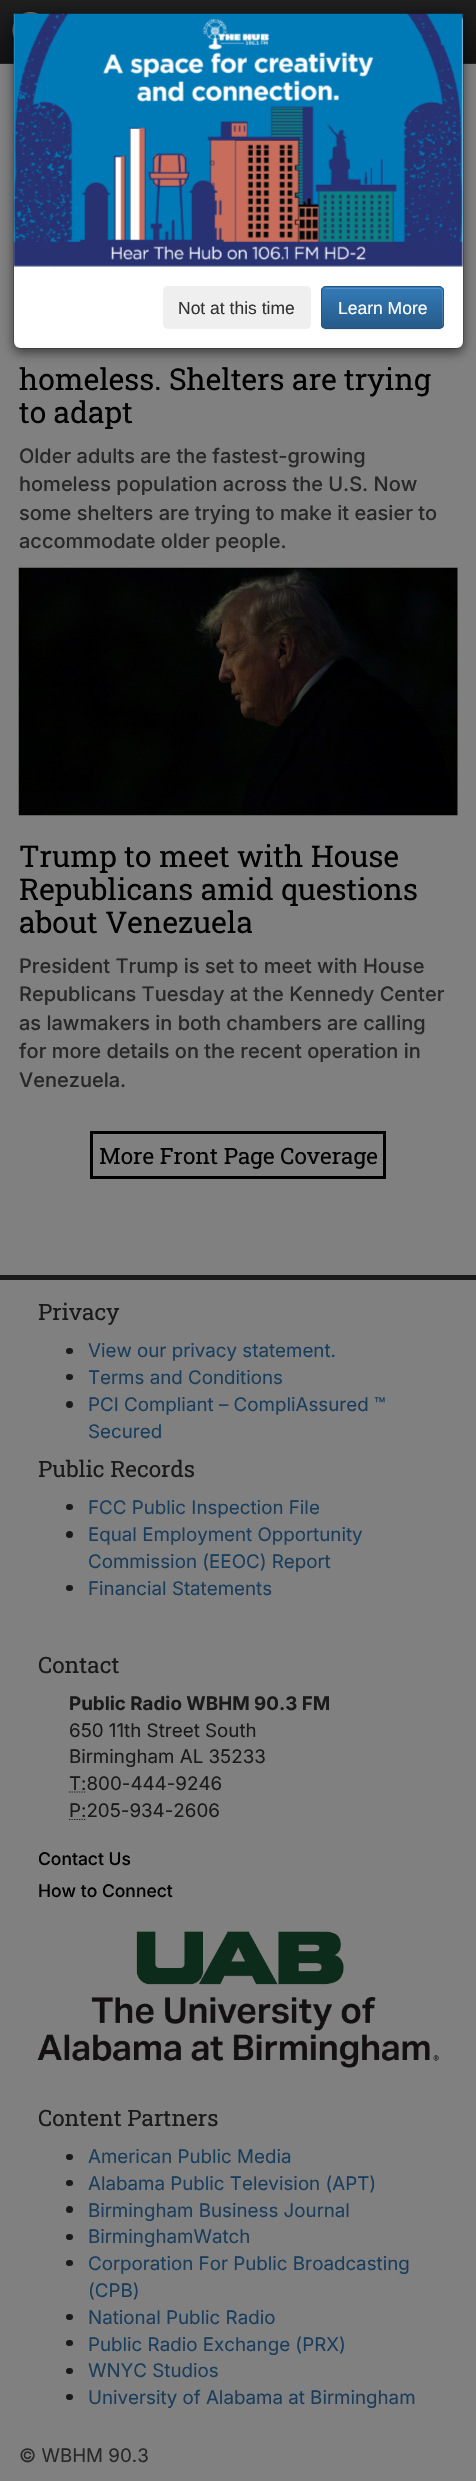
#include "include/core/SkBlurTypes.h"
#include "include/core/SkCanvas.h"
#include "include/core/SkData.h"
#include "include/core/SkFont.h"
#include "include/core/SkFontMgr.h"
#include "include/core/SkImage.h"
#include "include/core/SkMaskFilter.h"
#include "include/core/SkPaint.h"
#include "include/core/SkPathBuilder.h"
#include "include/core/SkTextBlob.h"
#include "include/effects/SkDashPathEffect.h"
#include "include/effects/SkGradientShader.h"
#include "include/utils/SkParsePath.h"

extern sk_sp<SkFontMgr> fontMgr;

void draw(SkCanvas* canvas) {
  SkPaint p;
  p.setAntiAlias(true);
  canvas->clear(SkColorSetRGB(128, 128, 128));
  {
    const SkColor colors[] = {SkColorSetRGB(30, 30, 30), SkColorSetRGB(17, 17, 17)};
    const float stops[] = {0, 1};
    const SkPoint ends[] = {{238, 0}, {238, 63}};
    p.setShader(SkGradientShader::MakeLinear(ends, colors, stops, 2, SkTileMode::kClamp));
    p.setAlpha(255);
  }
  canvas->drawRect(SkRect::MakeLTRB(0, 0, 476, 63), p);
  p.setShader(nullptr);
  p.setColor(SkColorSetRGB(32, 32, 33));
  canvas->drawRect(SkRect::MakeLTRB(0, 63, 476, 64), p);
  canvas->drawImageRect(SkImages::DeferredFromEncodedData(SkData::MakeFromFileName("images/1.png")), SkRect::MakeLTRB(12, 12, 39, 38), SkSamplingOptions());
  p.setStyle(SkPaint::kStroke_Style);
  p.setStrokeWidth(1);
  p.setColor(SkColorSetRGB(26, 26, 26));
  canvas->drawRoundRect(SkRect::MakeLTRB(403.5f, 10.5f, 457.5f, 52.5f), 4.5f, 4.5f, p);
  p.setStyle(SkPaint::kFill_Style);
  p.setColor(SkColorSetARGB(128, 0, 0, 0));
  p.setMaskFilter(SkMaskFilter::MakeBlur(kNormal_SkBlurStyle, 5.5f));
  canvas->drawRoundRect(SkRect::MakeLTRB(13, 16, 464, 353), 8, 8, p);
  p.setMaskFilter(nullptr);
  p.setColor(SK_ColorWHITE);
  canvas->drawRoundRect(SkRect::MakeLTRB(14, 14, 463, 348), 6, 6, p);
  p.setStyle(SkPaint::kStroke_Style);
  p.setColor(SkColorSetARGB(51, 0, 0, 0));
  canvas->drawRoundRect(SkRect::MakeLTRB(13.5f, 13.5f, 463.5f, 348.5f), 7.5f, 7.5f, p);
  p.setStyle(SkPaint::kFill_Style);
  p.setColor(SkColorSetRGB(229, 229, 229));
  canvas->drawRect(SkRect::MakeLTRB(14, 266, 463, 267), p);
  canvas->drawImageRect(SkImages::DeferredFromEncodedData(SkData::MakeFromFileName("images/2.png")), SkRect::MakeLTRB(13, 13, 463, 267), SkSamplingOptions());
  p.setColor(SkColorSetRGB(239, 239, 239));
  canvas->drawRoundRect(SkRect::MakeLTRB(163, 286, 311, 329), 5, 5, p);
  p.setColor(SkColorSetARGB(18, 0, 0, 0));
  p.setMaskFilter(SkMaskFilter::MakeBlur(kNormal_SkBlurStyle, 0.5f));
  canvas->drawRoundRect(SkRect::MakeLTRB(321, 288, 444, 330), 5, 5, p);
  p.setMaskFilter(nullptr);
  p.setColor(SkColorSetRGB(51, 122, 183));
  canvas->drawRoundRect(SkRect::MakeLTRB(321, 286, 444, 329), 5, 5, p);
  canvas->save();
  canvas->clipPath(SkPathBuilder().moveTo(326, 286).lineTo(439, 286).cubicTo(442, 286, 444, 288, 444, 291).lineTo(444, 324).cubicTo(444, 327, 442, 329, 439, 329).lineTo(326, 329).cubicTo(323, 329, 321, 327, 321, 324).lineTo(321, 291).cubicTo(321, 288, 323, 286, 326, 286).close().detach(), true);
  {
    const SkColor colors[] = {SkColorSetRGB(51, 122, 183), SkColorSetRGB(38, 90, 136)};
    const float stops[] = {0, 1};
    const SkPoint ends[] = {{383, 288}, {383, 328}};
    p.setShader(SkGradientShader::MakeLinear(ends, colors, stops, 2, SkTileMode::kClamp));
    p.setAlpha(255);
  }
  canvas->drawRect(SkRect::MakeLTRB(321, 288, 444, 328), p);
  canvas->restore();
  p.setShader(nullptr);
  p.setColor(SkColorSetARGB(38, 255, 255, 255));
  canvas->drawPath(SkPathBuilder().moveTo(326, 289).lineTo(439, 289).cubicTo(441, 289, 442, 290, 442, 292).lineTo(442, 327).cubicTo(442, 326, 443, 325, 443, 324).lineTo(443, 292).cubicTo(443, 290, 441, 288, 439, 288).lineTo(327, 288).cubicTo(326, 288, 325, 289, 324, 289).close().detach(), p);
  p.setStyle(SkPaint::kStroke_Style);
  p.setColor(SkColorSetRGB(36, 85, 128));
  canvas->drawRoundRect(SkRect::MakeLTRB(321.5f, 286.5f, 443.5f, 328.5f), 4.5f, 4.5f, p);
  canvas->drawImageRect(SkImages::DeferredFromEncodedData(SkData::MakeFromFileName("images/3.png")), SkRect::MakeLTRB(18, 567, 458, 816), SkSamplingOptions());
  p.setStrokeWidth(3);
  p.setColor(SK_ColorBLACK);
  canvas->drawRect(SkRect::MakeLTRB(91.5f, 1132.5f, 384.5f, 1177.5f), p);
  p.setStyle(SkPaint::kFill_Style);
  p.setColor(SkColorSetRGB(26, 26, 26));
  canvas->drawRect(SkRect::MakeLTRB(0, 1275, 476, 1280), p);
  canvas->drawRoundRect(SkRect::MakeLTRB(66, 1348, 73, 1354), 3, 3, p);
  canvas->drawRoundRect(SkRect::MakeLTRB(66, 1374, 73, 1380), 3, 3, p);
  canvas->drawCircle(69.5f, 1404.5f, 3.5f, p);
  canvas->drawRoundRect(SkRect::MakeLTRB(66, 1504, 73, 1510), 3, 3, p);
  canvas->drawCircle(69.5f, 1534.5f, 3.5f, p);
  canvas->drawRoundRect(SkRect::MakeLTRB(66, 1585, 73, 1591), 3, 3, p);
  p.setStyle(SkPaint::kStroke_Style);
  p.setStrokeWidth(1.2f);
  p.setPathEffect(SkDashPathEffect::Make({{1.25f, 1.25f}}, 0));
  canvas->drawPath(SkPathBuilder().moveTo(69, 1792).lineTo(86.5f, 1792).detach(), p);
  p.setPathEffect(nullptr);
  p.setPathEffect(SkDashPathEffect::Make({{1.25f, 1.25f}}, 0));
  canvas->drawPath(SkPathBuilder().moveTo(69, 1819.5f).lineTo(86, 1819.5f).detach(), p);
  p.setPathEffect(nullptr);
  canvas->drawImageRect(SkImages::DeferredFromEncodedData(SkData::MakeFromFileName("images/4.png")), SkRect::MakeLTRB(37, 1931, 439, 2068), SkSamplingOptions());
  p.setStyle(SkPaint::kFill_Style);
  canvas->drawRoundRect(SkRect::MakeLTRB(66, 2154, 73, 2160), 3, 3, p);
  canvas->drawRoundRect(SkRect::MakeLTRB(66, 2180, 73, 2186), 3, 3, p);
  canvas->drawCircle(69.5f, 2209.5f, 3.5f, p);
  canvas->drawRoundRect(SkRect::MakeLTRB(66, 2234, 73, 2240), 3, 3, p);
  canvas->drawRoundRect(SkRect::MakeLTRB(66, 2260, 73, 2266), 3, 3, p);
  canvas->drawRoundRect(SkRect::MakeLTRB(66, 2314, 73, 2320), 3, 3, p);
  canvas->drawRoundRect(SkRect::MakeLTRB(66, 2340, 73, 2346), 3, 3, p);
  canvas->drawRoundRect(SkRect::MakeLTRB(66, 2368, 73, 2374), 3, 3, p);
  canvas->drawRoundRect(SkRect::MakeLTRB(66, 2394, 73, 2400), 3, 3, p);
  SkFont font1(fontMgr->matchFamilyStyle("Liberation Sans", SkFontStyle::Normal()), 17.5f);
  font1.setSubpixel(true);
  p.setColor(SkColorSetRGB(51, 51, 51));
  canvas->drawString("Not at this time", 178, 314, font1, p);
  p.setColor(SK_ColorWHITE);
  canvas->drawString("Learn More", 338, 314, font1, p);
  SkFont font2(fontMgr->matchFamilyStyle("Roboto Slab", SkFontStyle::Normal()), 30);
  font2.setSubpixel(true);
  p.setColor(SK_ColorBLACK);
  canvas->drawString("homeless. Shelters are trying", 19, 390, font2, p);
  canvas->drawString("to adapt", 19, 423, font2, p);
  SkFont font3(fontMgr->matchFamilyStyle("Inter", SkFontStyle(500, SkFontStyle::kNormal_Width, SkFontStyle::kUpright_Slant)), 20);
  font3.setSubpixel(true);
  p.setColor(SkColorSetRGB(40, 40, 40));
  canvas->drawString("Older adults are the fastest-growing", 19, 463, font3, p);
  canvas->drawString("homeless population across the U.S. Now", 19, 491, font3, p);
  canvas->drawString("some shelters are trying to make it easier to", 19, 520, font3, p);
  canvas->drawString("accommodate older people.", 19, 548, font3, p);
  p.setColor(SK_ColorBLACK);
  canvas->drawString("Trump to meet with House", 19, 867, font2, p);
  canvas->drawString("Republicans amid questions", 19, 900, font2, p);
  canvas->drawString("about Venezuela", 19, 933, font2, p);
  p.setColor(SkColorSetRGB(40, 40, 40));
  canvas->drawString("President Trump is set to meet with House", 19, 973, font3, p);
  canvas->drawString("Republicans Tuesday at the Kennedy Center", 19, 1001, font3, p);
  canvas->drawString("as lawmakers in both chambers are calling", 19, 1030, font3, p);
  canvas->drawString("for more details on the recent operation in", 19, 1058, font3, p);
  canvas->drawString("Venezuela.", 19, 1087, font3, p);
  SkFont font4(fontMgr->matchFamilyStyle("Roboto Slab", SkFontStyle::Normal()), 22.5f);
  font4.setSubpixel(true);
  p.setColor(SK_ColorBLACK);
  canvas->drawString("More Front Page Coverage", 99, 1164, font4, p);
  p.setColor(SkColorSetRGB(26, 26, 26));
  canvas->drawString("Privacy", 38, 1320, font4, p);
  SkFont font5(fontMgr->matchFamilyStyle("Inter", SkFontStyle::Normal()), 18.75f);
  font5.setSubpixel(true);
  p.setColor(SkColorSetRGB(26, 61, 92));
  canvas->drawString("View our privacy statement.", 88, 1357, font5, p);
  canvas->drawString("Terms and Conditions", 88, 1384, font5, p);
  canvas->drawString("PCI Compliant – CompliAssured ™", 88, 1411, font5, p);
  canvas->drawString("Secured", 88, 1438, font5, p);
  p.setColor(SkColorSetRGB(26, 26, 26));
  canvas->drawString("Public Records", 38, 1477, font4, p);
  p.setColor(SkColorSetRGB(26, 61, 92));
  canvas->drawString("FCC Public Inspection File", 88, 1514, font5, p);
  canvas->drawString("Equal Employment Opportunity", 88, 1541, font5, p);
  canvas->drawString("Commission (EEOC) Report", 88, 1568, font5, p);
  canvas->drawString("Financial Statements", 88, 1595, font5, p);
  p.setColor(SkColorSetRGB(26, 26, 26));
  canvas->drawString("Contact", 38, 1673, font4, p);
  SkFont font6(fontMgr->matchFamilyStyle("Inter", SkFontStyle::Bold()), 18.75f);
  font6.setSubpixel(true);
  canvas->drawString("Public Radio WBHM 90.3 FM", 69, 1710, font6, p);
  canvas->drawString("650 11th Street South", 69, 1737, font5, p);
  canvas->drawString("Birmingham AL 35233", 69, 1763, font5, p);
  canvas->drawString("T:800-444-9246", 69, 1790, font5, p);
  canvas->drawString("P:205-934-2606", 69, 1817, font5, p);
  SkFont font7(fontMgr->matchFamilyStyle("Inter", SkFontStyle(500, SkFontStyle::kNormal_Width, SkFontStyle::kUpright_Slant)), 17.5f);
  font7.setSubpixel(true);
  p.setColor(SK_ColorBLACK);
  canvas->drawString("Contact Us", 38, 1865, font7, p);
  canvas->drawString("How to Connect", 38, 1897, font7, p);
  p.setColor(SkColorSetRGB(26, 26, 26));
  canvas->drawString("Content Partners", 38, 2126, font4, p);
  p.setColor(SkColorSetRGB(26, 61, 92));
  canvas->drawString("American Public Media", 88, 2163, font5, p);
  canvas->drawString("Alabama Public Television (APT)", 88, 2190, font5, p);
  canvas->drawString("Birmingham Business Journal", 88, 2217, font5, p);
  canvas->drawString("BirminghamWatch", 88, 2243, font5, p);
  canvas->drawString("Corporation For Public Broadcasting", 88, 2270, font5, p);
  canvas->drawString("(CPB)", 88, 2297, font5, p);
  canvas->drawString("National Public Radio", 88, 2324, font5, p);
  canvas->drawString("Public Radio Exchange (PRX)", 88, 2351, font5, p);
  canvas->drawString("WNYC Studios", 88, 2377, font5, p);
  canvas->drawString("University of Alabama at Birmingham", 88, 2404, font5, p);
  p.setColor(SkColorSetRGB(40, 40, 40));
  canvas->drawString("© WBHM 90.3", 19, 2462, font5, p);
}
